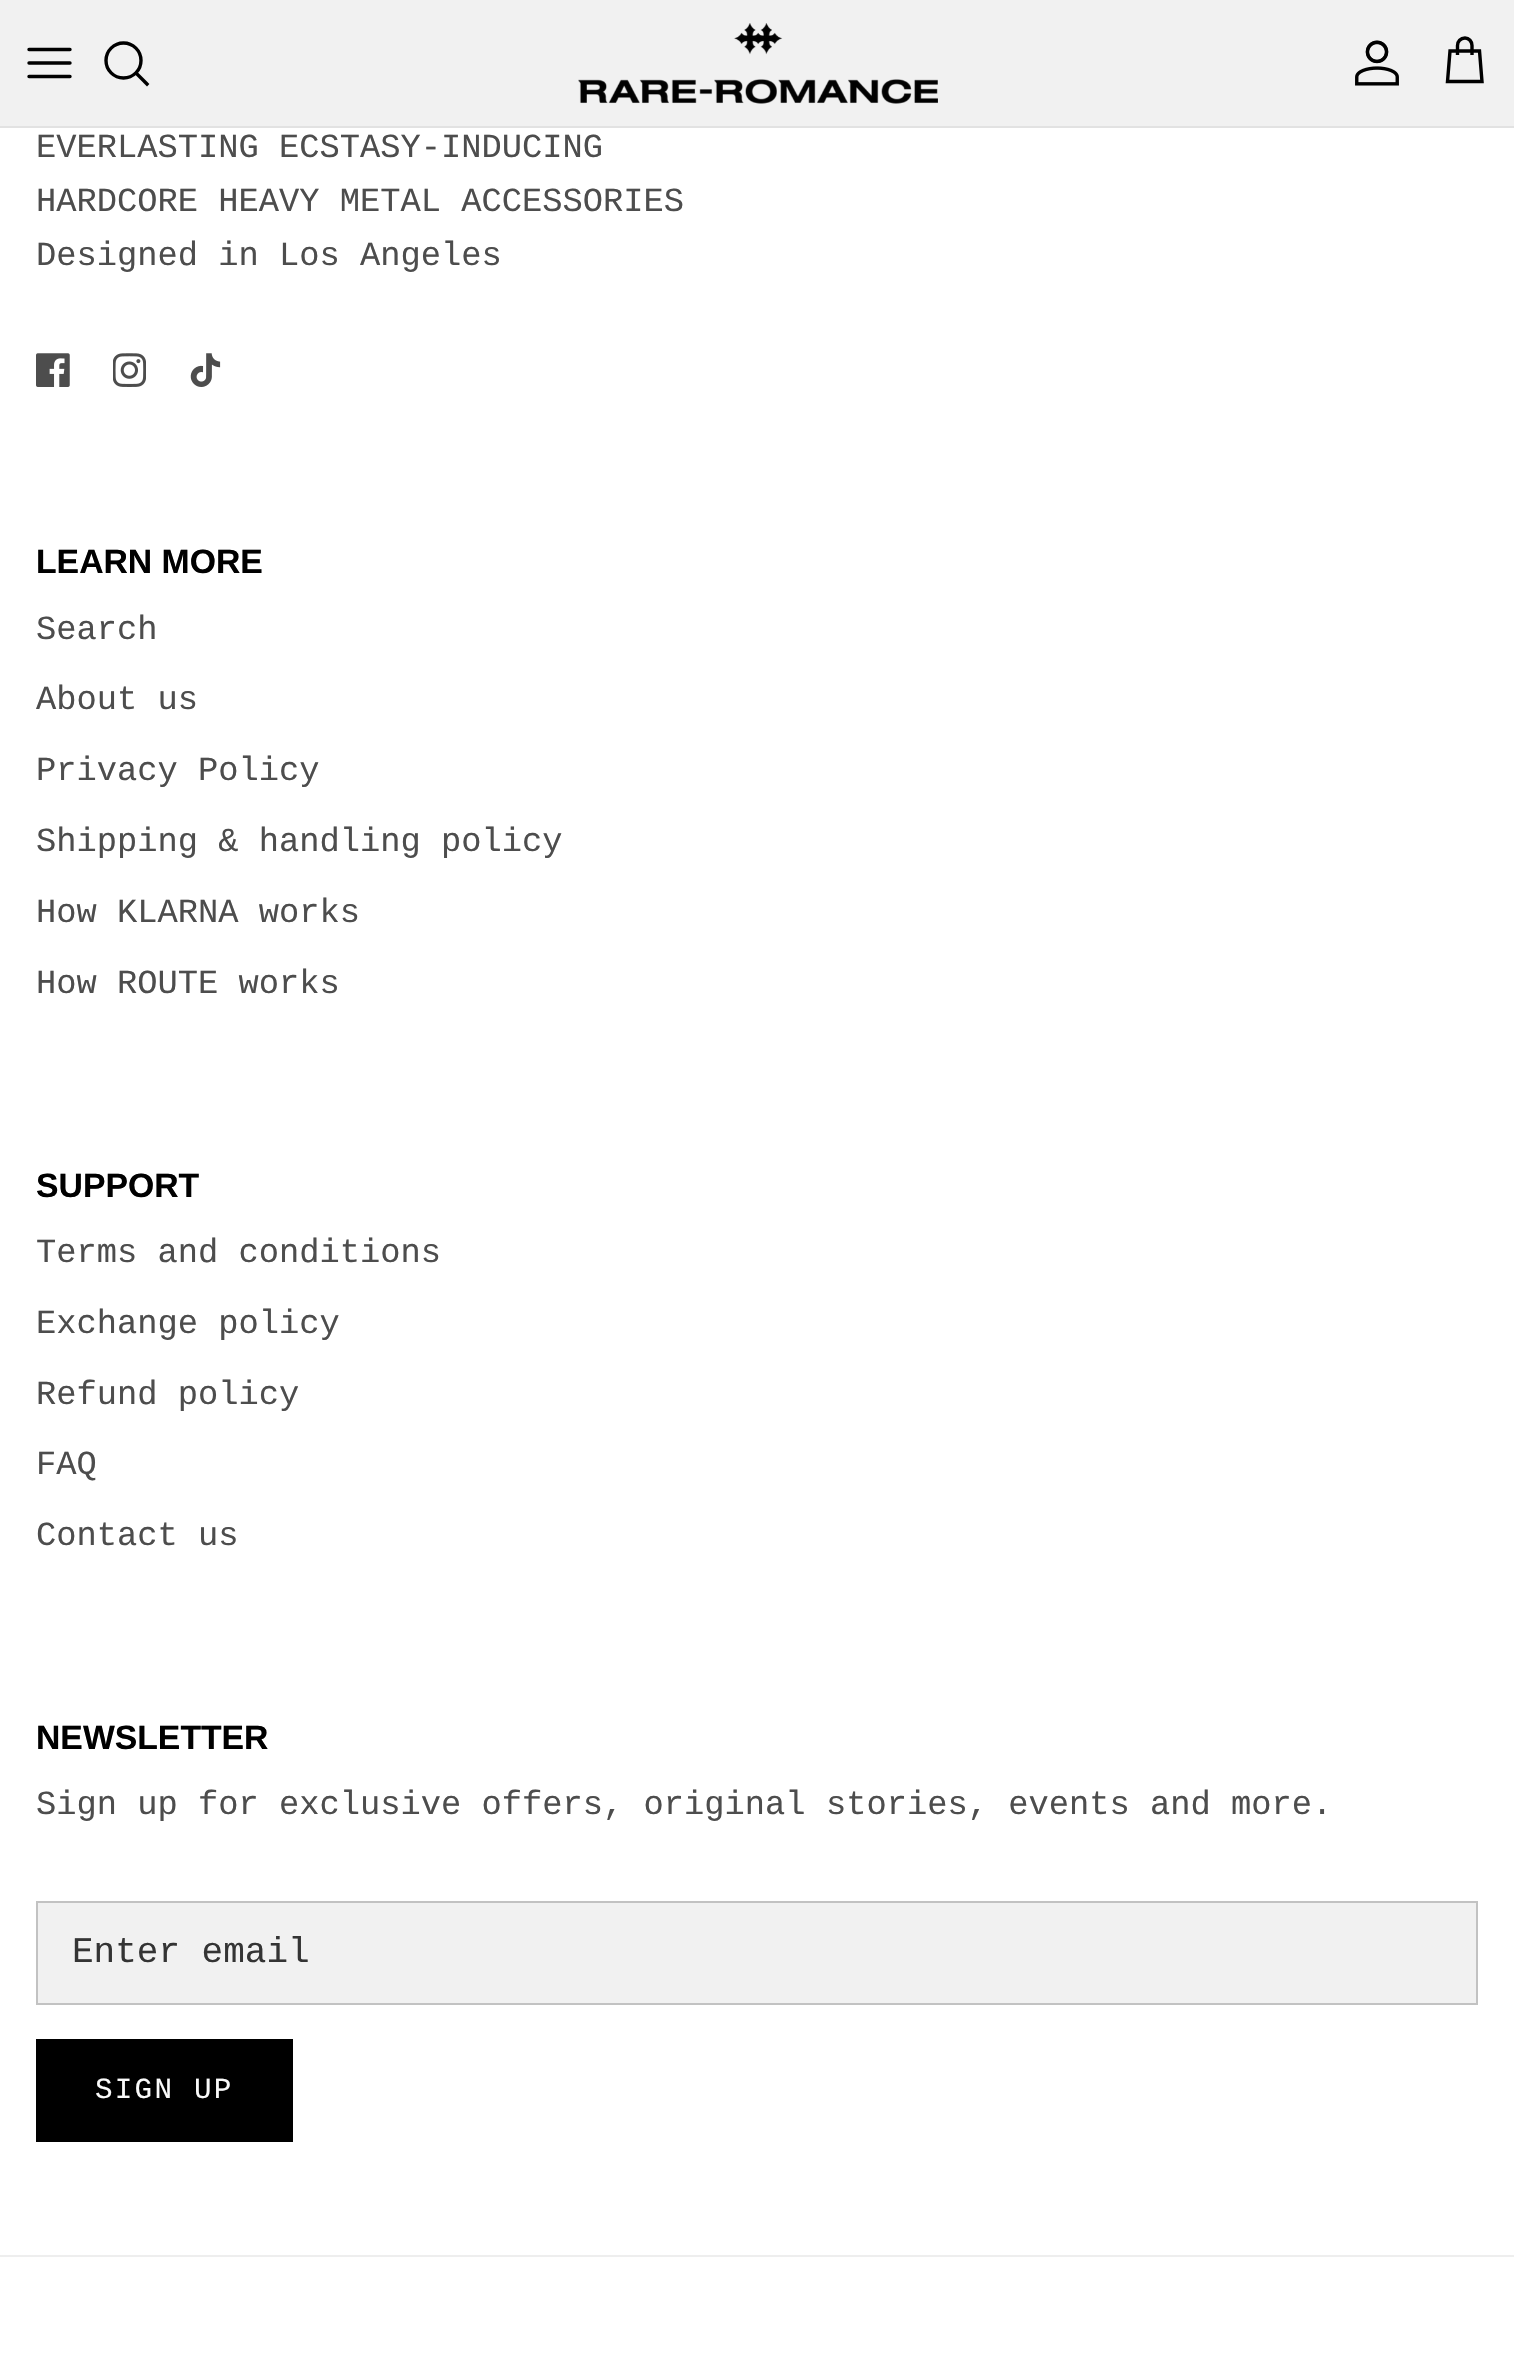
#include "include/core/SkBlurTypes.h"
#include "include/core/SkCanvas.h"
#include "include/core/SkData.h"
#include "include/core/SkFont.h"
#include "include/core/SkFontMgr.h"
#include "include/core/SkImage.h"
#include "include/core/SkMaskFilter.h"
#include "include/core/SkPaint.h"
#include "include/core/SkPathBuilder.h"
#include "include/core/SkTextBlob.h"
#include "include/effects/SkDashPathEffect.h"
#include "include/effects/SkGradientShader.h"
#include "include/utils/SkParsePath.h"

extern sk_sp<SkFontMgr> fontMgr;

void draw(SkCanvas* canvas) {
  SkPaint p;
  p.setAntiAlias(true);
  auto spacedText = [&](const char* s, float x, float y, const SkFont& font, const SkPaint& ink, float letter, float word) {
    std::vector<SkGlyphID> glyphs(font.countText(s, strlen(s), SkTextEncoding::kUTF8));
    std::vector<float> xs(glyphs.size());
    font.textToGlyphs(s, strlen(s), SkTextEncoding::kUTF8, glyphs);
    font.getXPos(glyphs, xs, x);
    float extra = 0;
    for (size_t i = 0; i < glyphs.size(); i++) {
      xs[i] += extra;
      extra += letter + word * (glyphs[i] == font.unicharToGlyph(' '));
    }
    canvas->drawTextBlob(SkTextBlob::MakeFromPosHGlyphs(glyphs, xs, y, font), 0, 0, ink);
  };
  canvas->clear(SK_ColorWHITE);
  p.setColor(SkColorSetRGB(241, 241, 241));
  canvas->drawRect(SkRect::MakeLTRB(0, 0, 1514, 126), p);
  p.setColor(SkColorSetRGB(226, 226, 226));
  canvas->drawRect(SkRect::MakeLTRB(0, 126, 1514, 128), p);
  p.setStyle(SkPaint::kStroke_Style);
  p.setStrokeWidth(3.4f);
  p.setStrokeCap(SkPaint::kRound_Cap);
  p.setStrokeJoin(SkPaint::kRound_Join);
  p.setColor(SK_ColorBLACK);
  canvas->drawPath(SkPathBuilder().moveTo(29, 63).lineTo(70, 63).moveTo(29, 49.5f).lineTo(70, 49.5f).moveTo(29, 76.5f).lineTo(70, 76.5f).detach(), p);
  p.setStrokeCap(SkPaint::kButt_Cap);
  p.setStrokeJoin(SkPaint::kMiter_Join);
  canvas->drawCircle(123.5f, 60.5f, 17.5f, p);
  p.setStrokeCap(SkPaint::kSquare_Cap);
  canvas->drawPath(SkPathBuilder().moveTo(137, 74).lineTo(147, 84).detach(), p);
  canvas->drawImageRect(SkImages::DeferredFromEncodedData(SkData::MakeFromFileName("images/1.png")), SkRect::MakeLTRB(578, 23, 938, 104), SkSamplingOptions());
  canvas->drawImageRect(SkImages::DeferredFromEncodedData(SkData::MakeFromFileName("images/2.png")), SkRect::MakeLTRB(1355, 40, 1399, 86), SkSamplingOptions());
  p.setStrokeCap(SkPaint::kButt_Cap);
  canvas->drawPath(SkPathBuilder().moveTo(1472, 55).lineTo(1472, 45.5f).cubicTo(1472, 41.5f, 1469, 38, 1465, 38).cubicTo(1460.5f, 38, 1457.5f, 41.5f, 1457.5f, 45.5f).lineTo(1457.5f, 55).moveTo(1450, 51).lineTo(1479.5f, 51).lineTo(1482, 81.5f).lineTo(1447.5f, 81.5f).close().detach(), p);
  canvas->drawImageRect(SkImages::DeferredFromEncodedData(SkData::MakeFromFileName("images/3.png")), SkRect::MakeLTRB(36, 353, 70, 387), SkSamplingOptions());
  canvas->drawImageRect(SkImages::DeferredFromEncodedData(SkData::MakeFromFileName("images/4.png")), SkRect::MakeLTRB(113, 353, 146, 387), SkSamplingOptions());
  canvas->drawImageRect(SkImages::DeferredFromEncodedData(SkData::MakeFromFileName("images/5.png")), SkRect::MakeLTRB(190, 353, 221, 387), SkSamplingOptions());
  p.setStyle(SkPaint::kFill_Style);
  p.setColor(SkColorSetRGB(241, 241, 241));
  canvas->drawRect(SkRect::MakeLTRB(37, 1902, 1477, 2004), p);
  p.setStyle(SkPaint::kStroke_Style);
  p.setStrokeWidth(2);
  p.setColor(SkColorSetRGB(194, 194, 194));
  canvas->drawRect(SkRect::MakeLTRB(37, 1902, 1477, 2004), p);
  p.setStyle(SkPaint::kFill_Style);
  p.setColor(SK_ColorBLACK);
  canvas->drawRect(SkRect::MakeLTRB(36, 2039, 293, 2142), p);
  p.setColor(SkColorSetRGB(238, 238, 238));
  canvas->drawRect(SkRect::MakeLTRB(0, 2255, 1514, 2257), p);
  SkFont font1(fontMgr->matchFamilyStyle("Liberation Mono", SkFontStyle::Normal()), 33.75f);
  font1.setSubpixel(true);
  p.setColor(SkColorSetRGB(77, 77, 77));
  canvas->drawString("EVERLASTING ECSTASY-INDUCING", 36, 157, font1, p);
  canvas->drawString("HARDCORE HEAVY METAL ACCESSORIES", 36, 211, font1, p);
  canvas->drawString("Designed in Los Angeles", 36, 265, font1, p);
  SkFont font2(fontMgr->matchFamilyStyle("Liberation Sans", SkFontStyle::Bold()), 33.75f);
  font2.setSubpixel(true);
  p.setColor(SK_ColorBLACK);
  canvas->drawString("LEARN MORE", 36, 573, font2, p);
  p.setColor(SkColorSetRGB(77, 77, 77));
  canvas->drawString("Search", 36, 639, font1, p);
  canvas->drawString("About us", 36, 709, font1, p);
  canvas->drawString("Privacy Policy", 36, 780, font1, p);
  canvas->drawString("Shipping & handling policy", 36, 851, font1, p);
  canvas->drawString("How KLARNA works", 36, 922, font1, p);
  canvas->drawString("How ROUTE works", 36, 993, font1, p);
  p.setColor(SK_ColorBLACK);
  canvas->drawString("SUPPORT", 36, 1197, font2, p);
  p.setColor(SkColorSetRGB(77, 77, 77));
  canvas->drawString("Terms and conditions", 36, 1262, font1, p);
  canvas->drawString("Exchange policy", 36, 1333, font1, p);
  canvas->drawString("Refund policy", 36, 1404, font1, p);
  canvas->drawString("FAQ", 36, 1474, font1, p);
  canvas->drawString("Contact us", 36, 1545, font1, p);
  p.setColor(SK_ColorBLACK);
  canvas->drawString("NEWSLETTER", 36, 1749, font2, p);
  p.setColor(SkColorSetRGB(77, 77, 77));
  canvas->drawString("Sign up for exclusive offers, original stories, events and more.", 36, 1814, font1, p);
  SkFont font3(fontMgr->matchFamilyStyle("Liberation Mono", SkFontStyle::Normal()), 36);
  font3.setSubpixel(true);
  p.setColor(SkColorSetRGB(52, 52, 52));
  canvas->drawString("Enter email", 72, 1962, font3, p);
  SkFont font4(fontMgr->matchFamilyStyle("Liberation Mono", SkFontStyle::Normal()), 29.25f);
  font4.setSubpixel(true);
  p.setColor(SkColorSetRGB(250, 250, 250));
  spacedText("SIGN UP", 95, 2098, font4, p, 2.25f, 0);
}
